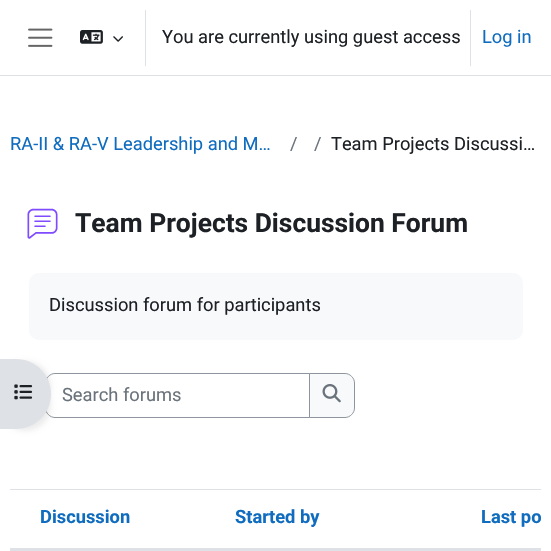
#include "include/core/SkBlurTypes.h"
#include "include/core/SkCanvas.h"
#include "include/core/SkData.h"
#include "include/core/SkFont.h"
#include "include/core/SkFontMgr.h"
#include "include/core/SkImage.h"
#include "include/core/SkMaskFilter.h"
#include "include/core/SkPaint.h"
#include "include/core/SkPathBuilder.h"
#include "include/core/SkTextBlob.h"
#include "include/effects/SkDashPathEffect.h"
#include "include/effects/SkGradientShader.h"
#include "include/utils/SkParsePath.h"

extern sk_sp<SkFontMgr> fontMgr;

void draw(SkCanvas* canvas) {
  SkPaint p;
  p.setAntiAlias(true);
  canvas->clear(SK_ColorWHITE);
  p.setColor(SkColorSetRGB(222, 226, 230));
  canvas->drawRect(SkRect::MakeLTRB(0, 75, 551, 76), p);
  canvas->drawImageRect(SkImages::DeferredFromEncodedData(SkData::MakeFromFileName("images/1.png")), SkRect::MakeLTRB(28, 28, 53, 47), SkSamplingOptions());
  canvas->drawImageRect(SkImages::DeferredFromEncodedData(SkData::MakeFromFileName("images/2.png")), SkRect::MakeLTRB(80, 30, 103, 44), SkSamplingOptions());
  canvas->drawImageRect(SkImages::DeferredFromEncodedData(SkData::MakeFromFileName("images/3.png")), SkRect::MakeLTRB(113, 36, 123, 42), SkSamplingOptions());
  canvas->drawRect(SkRect::MakeLTRB(145, 10, 146, 66), p);
  canvas->drawRect(SkRect::MakeLTRB(470, 10, 471, 66), p);
  canvas->drawImageRect(SkImages::DeferredFromEncodedData(SkData::MakeFromFileName("images/4.png")), SkRect::MakeLTRB(27, 208, 58, 239), SkSamplingOptions());
  p.setStyle(SkPaint::kStroke_Style);
  p.setStrokeWidth(1);
  p.setColor(SkColorSetRGB(143, 149, 158));
  canvas->drawPath(SkPathBuilder().moveTo(55, 373.5f).lineTo(309.5f, 373.5f).lineTo(309.5f, 417.5f).lineTo(55, 417.5f).cubicTo(50, 417.5f, 45.5f, 413, 45.5f, 408).lineTo(45.5f, 383).cubicTo(45.5f, 378, 50, 373.5f, 55, 373.5f).close().detach(), p);
  p.setStyle(SkPaint::kFill_Style);
  p.setColor(SkColorSetARGB(18, 0, 0, 0));
  p.setMaskFilter(SkMaskFilter::MakeBlur(kNormal_SkBlurStyle, 2.5f));
  canvas->drawRoundRect(SkRect::MakeLTRB(0, 361, 51, 431), 35, 35, p);
  p.setMaskFilter(nullptr);
  p.setColor(SkColorSetRGB(222, 226, 230));
  canvas->drawPath(SkPathBuilder().moveTo(0, 359).lineTo(16, 359).cubicTo(35.5f, 359, 51, 374.5f, 51, 394).cubicTo(51, 413.5f, 35.5f, 429, 16, 429).lineTo(0, 429).close().detach(), p);
  canvas->drawImageRect(SkImages::DeferredFromEncodedData(SkData::MakeFromFileName("images/5.png")), SkRect::MakeLTRB(14, 384, 33, 400), SkSamplingOptions());
  p.setColor(SkColorSetRGB(248, 249, 250));
  canvas->drawRoundRect(SkRect::MakeLTRB(29, 273, 523, 340), 10, 10, p);
  canvas->drawPath(SkPathBuilder().moveTo(309.5f, 373.5f).lineTo(345, 373.5f).cubicTo(350, 373.5f, 354.5f, 378, 354.5f, 383).lineTo(354.5f, 408).cubicTo(354.5f, 413, 350, 417.5f, 345, 417.5f).lineTo(309.5f, 417.5f).close().detach(), p);
  p.setStyle(SkPaint::kStroke_Style);
  p.setColor(SkColorSetRGB(143, 149, 158));
  canvas->drawPath(SkPathBuilder().moveTo(309.5f, 373.5f).lineTo(345, 373.5f).cubicTo(350, 373.5f, 354.5f, 378, 354.5f, 383).lineTo(354.5f, 408).cubicTo(354.5f, 413, 350, 417.5f, 345, 417.5f).lineTo(309.5f, 417.5f).close().detach(), p);
  canvas->drawImageRect(SkImages::DeferredFromEncodedData(SkData::MakeFromFileName("images/6.png")), SkRect::MakeLTRB(322, 384, 341, 403), SkSamplingOptions());
  p.setStyle(SkPaint::kFill_Style);
  p.setColor(SkColorSetRGB(222, 226, 230));
  canvas->drawRect(SkRect::MakeLTRB(10, 489, 541, 490), p);
  canvas->drawRect(SkRect::MakeLTRB(10, 548, 541, 551), p);
  SkFont font1(fontMgr->matchFamilyStyle("Roboto", SkFontStyle::Normal()), 18.3f);
  font1.setSubpixel(true);
  p.setColor(SkColorSetRGB(29, 33, 37));
  canvas->drawString("You are currently using guest access", 162, 43, font1, p);
  p.setColor(SkColorSetRGB(15, 108, 191));
  canvas->drawString("Log in", 482, 43, font1, p);
  canvas->drawString("RA-II & RA-V Leadership and M…", 10, 150, font1, p);
  p.setColor(SkColorSetRGB(106, 115, 123));
  canvas->drawString("/", 290, 150, font1, p);
  canvas->drawString("/", 314, 150, font1, p);
  p.setColor(SkColorSetRGB(29, 33, 37));
  canvas->drawString("Team Projects Discussi…", 331, 150, font1, p);
  SkFont font2(fontMgr->matchFamilyStyle("Roboto", SkFontStyle::Bold()), 26.4f);
  font2.setSubpixel(true);
  canvas->drawString("Team Projects Discussion Forum", 75, 232, font2, p);
  canvas->drawString("Discussion forum for participants", 49, 311, font1, p);
  p.setColor(SkColorSetRGB(106, 115, 123));
  canvas->drawString("Search forums", 62, 401, font1, p);
  SkFont font3(fontMgr->matchFamilyStyle("Roboto", SkFontStyle::Bold()), 18.3f);
  font3.setSubpixel(true);
  p.setColor(SkColorSetRGB(15, 108, 191));
  canvas->drawString("Discussion", 40, 523, font3, p);
  canvas->drawString("Started by", 235, 523, font3, p);
  canvas->drawString("Last po", 481, 523, font3, p);
}
